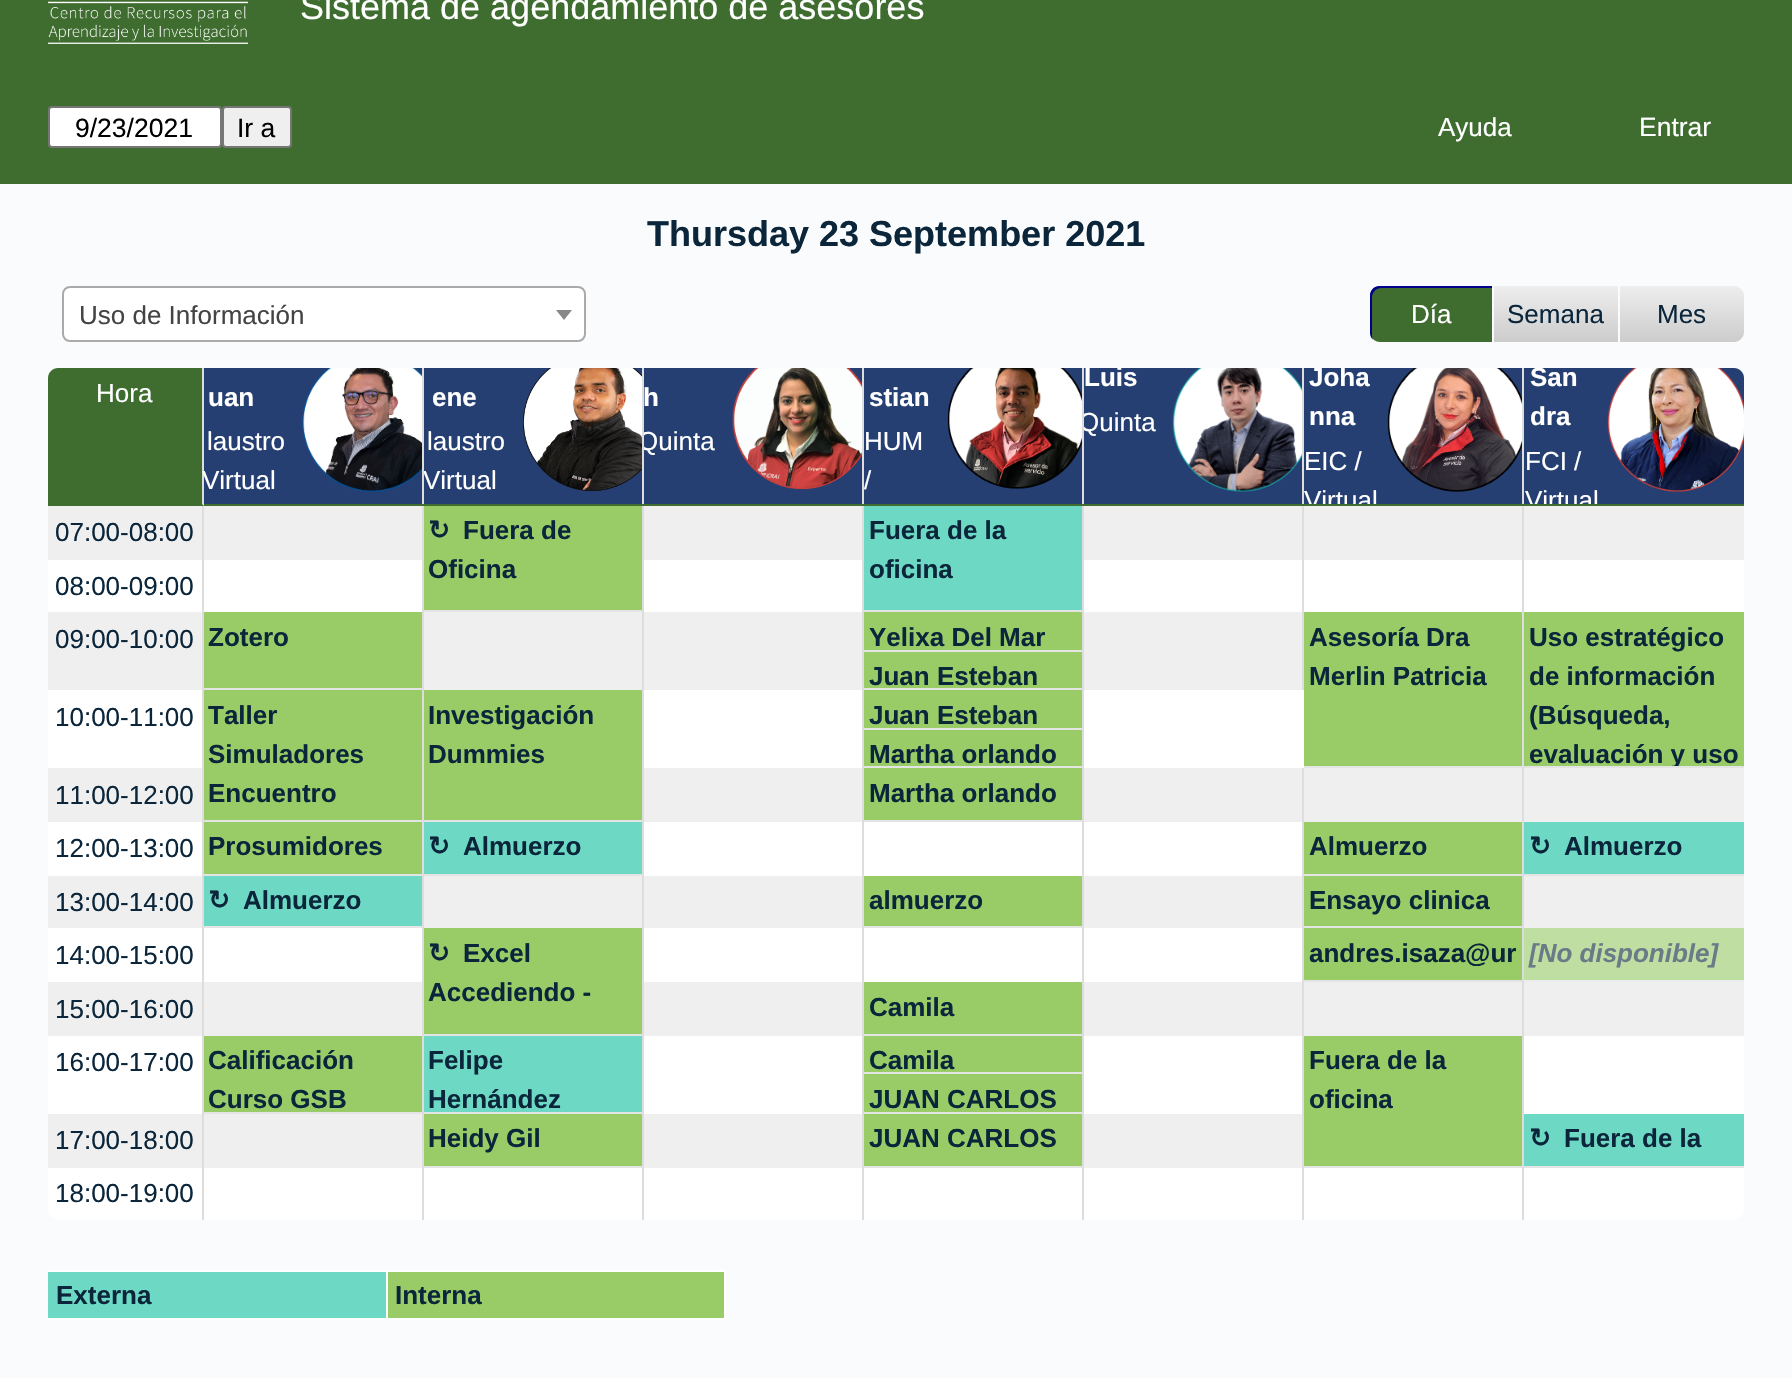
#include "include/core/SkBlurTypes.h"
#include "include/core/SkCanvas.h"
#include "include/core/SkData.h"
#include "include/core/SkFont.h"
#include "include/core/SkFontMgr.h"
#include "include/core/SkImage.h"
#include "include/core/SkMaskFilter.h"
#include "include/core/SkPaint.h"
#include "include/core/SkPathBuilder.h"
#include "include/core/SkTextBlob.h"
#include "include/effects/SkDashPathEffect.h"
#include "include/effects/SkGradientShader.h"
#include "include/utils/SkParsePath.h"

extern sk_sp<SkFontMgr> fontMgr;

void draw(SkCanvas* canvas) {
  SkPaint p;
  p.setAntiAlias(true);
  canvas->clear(SkColorSetRGB(249, 251, 252));
  p.setColor(SkColorSetRGB(63, 109, 48));
  canvas->drawRect(SkRect::MakeLTRB(0, 0, 1792, 184), p);
  canvas->drawImageRect(SkImages::DeferredFromEncodedData(SkData::MakeFromFileName("images/1.png")), SkRect::MakeLTRB(48, 1, 248, 44), SkSamplingOptions());
  p.setColor(SK_ColorWHITE);
  canvas->drawRoundRect(SkRect::MakeLTRB(49, 107, 221, 147), 3, 3, p);
  p.setStyle(SkPaint::kStroke_Style);
  p.setStrokeWidth(2);
  p.setColor(SkColorSetRGB(118, 118, 118));
  canvas->drawRoundRect(SkRect::MakeLTRB(49, 107, 221, 147), 3, 3, p);
  p.setStyle(SkPaint::kFill_Style);
  p.setColor(SkColorSetRGB(239, 239, 239));
  canvas->drawRoundRect(SkRect::MakeLTRB(223, 107, 291, 147), 3, 3, p);
  p.setStyle(SkPaint::kStroke_Style);
  p.setColor(SkColorSetRGB(118, 118, 118));
  canvas->drawRoundRect(SkRect::MakeLTRB(223, 107, 291, 147), 3, 3, p);
  p.setStyle(SkPaint::kFill_Style);
  p.setColor(SK_ColorWHITE);
  canvas->drawRoundRect(SkRect::MakeLTRB(63, 287, 585, 341), 7, 7, p);
  p.setStyle(SkPaint::kStroke_Style);
  p.setColor(SkColorSetRGB(170, 170, 170));
  canvas->drawRoundRect(SkRect::MakeLTRB(63, 287, 585, 341), 7, 7, p);
  p.setStyle(SkPaint::kFill_Style);
  p.setColor(SkColorSetRGB(136, 136, 136));
  canvas->drawPath(SkPathBuilder().moveTo(556, 310).lineTo(572, 310).lineTo(564, 320).close().detach(), p);
  p.setColor(SkColorSetRGB(63, 109, 48));
  canvas->drawPath(SkPathBuilder().moveTo(1380, 286).lineTo(1494, 286).lineTo(1494, 342).lineTo(1380, 342).cubicTo(1374.5f, 342, 1370, 337.5f, 1370, 332).lineTo(1370, 296).cubicTo(1370, 290.5f, 1374.5f, 286, 1380, 286).close().detach(), p);
  p.setColor(SkColorSetRGB(0, 0, 139));
  canvas->drawPath(SkPathBuilder().moveTo(1382, 288).lineTo(1492, 288).lineTo(1492, 286).lineTo(1380, 286).cubicTo(1374, 286, 1370, 290, 1370, 296).lineTo(1370, 332).cubicTo(1370, 335, 1371, 338, 1373, 340).cubicTo(1372, 338, 1372, 336, 1372, 334).lineTo(1372, 298).cubicTo(1372, 292, 1376, 288, 1382, 288).close().detach(), p);
  p.setColor(SkColorSetRGB(249, 251, 252));
  canvas->drawRect(SkRect::MakeLTRB(1492, 286, 1494, 342), p);
  {
    const SkColor colors[] = {SkColorSetRGB(238, 238, 238), SkColorSetRGB(204, 204, 204)};
    const float stops[] = {0, 1};
    const SkPoint ends[] = {{1556, 286}, {1556, 342}};
    p.setShader(SkGradientShader::MakeLinear(ends, colors, stops, 2, SkTileMode::kClamp));
    p.setAlpha(255);
  }
  canvas->drawRect(SkRect::MakeLTRB(1494, 286, 1618, 342), p);
  {
    const SkColor colors[] = {SkColorSetRGB(238, 238, 238), SkColorSetRGB(204, 204, 204)};
    const float stops[] = {0, 1};
    const SkPoint ends[] = {{1682, 286}, {1682, 342}};
    p.setShader(SkGradientShader::MakeLinear(ends, colors, stops, 2, SkTileMode::kClamp));
    p.setAlpha(255);
  }
  canvas->drawPath(SkPathBuilder().moveTo(1620, 286).lineTo(1734, 286).cubicTo(1739.5f, 286, 1744, 290.5f, 1744, 296).lineTo(1744, 332).cubicTo(1744, 337.5f, 1739.5f, 342, 1734, 342).lineTo(1620, 342).close().detach(), p);
  p.setShader(nullptr);
  p.setColor(SkColorSetRGB(63, 109, 48));
  canvas->drawPath(SkPathBuilder().moveTo(58, 368).lineTo(202, 368).lineTo(202, 504).lineTo(48, 504).lineTo(48, 378).cubicTo(48, 372.5f, 52.5f, 368, 58, 368).close().detach(), p);
  p.setColor(SkColorSetRGB(221, 221, 221));
  canvas->drawPath(SkPathBuilder().moveTo(204, 368).lineTo(202, 368).lineTo(202, 504).lineTo(204, 506).close().detach(), p);
  p.setColor(SkColorSetRGB(63, 109, 48));
  canvas->drawPath(SkPathBuilder().moveTo(204, 506).lineTo(202, 504).lineTo(48, 504).lineTo(48, 506).close().detach(), p);
  p.setColor(SkColorSetRGB(38, 63, 115));
  canvas->drawRect(SkRect::MakeLTRB(204, 368, 422, 504), p);
  p.setColor(SkColorSetRGB(221, 221, 221));
  canvas->drawRect(SkRect::MakeLTRB(422, 368, 424, 1220), p);
  canvas->drawRect(SkRect::MakeLTRB(642, 368, 644, 1220), p);
  canvas->drawRect(SkRect::MakeLTRB(862, 368, 864, 1220), p);
  canvas->drawRect(SkRect::MakeLTRB(1082, 368, 1084, 1220), p);
  canvas->drawRect(SkRect::MakeLTRB(1302, 368, 1304, 690), p);
  canvas->drawRect(SkRect::MakeLTRB(1522, 368, 1524, 1220), p);
  p.setColor(SkColorSetRGB(63, 109, 48));
  canvas->drawRect(SkRect::MakeLTRB(204, 504, 1744, 506), p);
  canvas->drawImageRect(SkImages::DeferredFromEncodedData(SkData::MakeFromFileName("images/2.png")), SkRect::MakeLTRB(302, 368, 422, 492), SkSamplingOptions());
  p.setColor(SkColorSetRGB(38, 63, 115));
  canvas->drawRect(SkRect::MakeLTRB(424, 368, 642, 504), p);
  canvas->drawImageRect(SkImages::DeferredFromEncodedData(SkData::MakeFromFileName("images/3.png")), SkRect::MakeLTRB(523, 368, 642, 491), SkSamplingOptions());
  canvas->drawRect(SkRect::MakeLTRB(644, 368, 862, 504), p);
  canvas->drawImageRect(SkImages::DeferredFromEncodedData(SkData::MakeFromFileName("images/4.png")), SkRect::MakeLTRB(732, 368, 862, 490), SkSamplingOptions());
  canvas->drawRect(SkRect::MakeLTRB(864, 368, 1082, 504), p);
  canvas->drawImageRect(SkImages::DeferredFromEncodedData(SkData::MakeFromFileName("images/5.png")), SkRect::MakeLTRB(947, 368, 1082, 489), SkSamplingOptions());
  canvas->drawRect(SkRect::MakeLTRB(1084, 368, 1302, 504), p);
  canvas->drawImageRect(SkImages::DeferredFromEncodedData(SkData::MakeFromFileName("images/6.png")), SkRect::MakeLTRB(1172, 368, 1302, 492), SkSamplingOptions());
  canvas->drawRect(SkRect::MakeLTRB(1304, 368, 1522, 504), p);
  canvas->drawImageRect(SkImages::DeferredFromEncodedData(SkData::MakeFromFileName("images/7.png")), SkRect::MakeLTRB(1387, 368, 1522, 492), SkSamplingOptions());
  canvas->drawPath(SkPathBuilder().moveTo(1524, 368).lineTo(1734, 368).cubicTo(1739.5f, 368, 1744, 372.5f, 1744, 378).lineTo(1744, 504).lineTo(1524, 504).close().detach(), p);
  canvas->drawImageRect(SkImages::DeferredFromEncodedData(SkData::MakeFromFileName("images/8.png")), SkRect::MakeLTRB(1607, 368, 1744, 492), SkSamplingOptions());
  p.setColor(SkColorSetRGB(239, 239, 239));
  canvas->drawRect(SkRect::MakeLTRB(48, 506, 202, 560), p);
  p.setColor(SkColorSetRGB(221, 221, 221));
  canvas->drawRect(SkRect::MakeLTRB(202, 506, 204, 1220), p);
  p.setColor(SkColorSetRGB(239, 239, 239));
  canvas->drawRect(SkRect::MakeLTRB(204, 506, 422, 560), p);
  p.setColor(SkColorSetRGB(153, 204, 102));
  canvas->drawRect(SkRect::MakeLTRB(424, 506, 642, 610), p);
  p.setColor(SkColorSetRGB(228, 228, 228));
  canvas->drawRect(SkRect::MakeLTRB(424, 610, 642, 612), p);
  p.setColor(SkColorSetRGB(239, 239, 239));
  canvas->drawRect(SkRect::MakeLTRB(644, 506, 862, 560), p);
  p.setColor(SkColorSetRGB(109, 217, 196));
  canvas->drawRect(SkRect::MakeLTRB(864, 506, 1082, 610), p);
  p.setColor(SkColorSetRGB(228, 228, 228));
  canvas->drawRect(SkRect::MakeLTRB(864, 610, 1082, 612), p);
  p.setColor(SkColorSetRGB(239, 239, 239));
  canvas->drawRect(SkRect::MakeLTRB(1084, 506, 1302, 560), p);
  canvas->drawRect(SkRect::MakeLTRB(1304, 506, 1522, 560), p);
  canvas->drawRect(SkRect::MakeLTRB(1524, 506, 1744, 560), p);
  p.setColor(SK_ColorWHITE);
  canvas->drawRect(SkRect::MakeLTRB(48, 560, 202, 612), p);
  canvas->drawRect(SkRect::MakeLTRB(204, 560, 422, 612), p);
  canvas->drawRect(SkRect::MakeLTRB(644, 560, 862, 612), p);
  canvas->drawRect(SkRect::MakeLTRB(1084, 560, 1302, 612), p);
  canvas->drawRect(SkRect::MakeLTRB(1304, 560, 1522, 612), p);
  canvas->drawRect(SkRect::MakeLTRB(1524, 560, 1744, 612), p);
  p.setColor(SkColorSetRGB(239, 239, 239));
  canvas->drawRect(SkRect::MakeLTRB(48, 612, 202, 690), p);
  p.setColor(SkColorSetRGB(153, 204, 102));
  canvas->drawRect(SkRect::MakeLTRB(204, 612, 422, 688), p);
  p.setColor(SkColorSetRGB(228, 228, 228));
  canvas->drawRect(SkRect::MakeLTRB(204, 688, 422, 690), p);
  p.setColor(SkColorSetRGB(239, 239, 239));
  canvas->drawRect(SkRect::MakeLTRB(424, 612, 642, 690), p);
  canvas->drawRect(SkRect::MakeLTRB(644, 612, 862, 690), p);
  p.setColor(SkColorSetRGB(153, 204, 102));
  canvas->drawRect(SkRect::MakeLTRB(864, 612, 1082, 650), p);
  p.setColor(SkColorSetRGB(228, 228, 228));
  canvas->drawRect(SkRect::MakeLTRB(864, 650, 1082, 652), p);
  p.setColor(SkColorSetRGB(153, 204, 102));
  canvas->drawRect(SkRect::MakeLTRB(864, 652, 1082, 688), p);
  p.setColor(SkColorSetRGB(228, 228, 228));
  canvas->drawRect(SkRect::MakeLTRB(864, 688, 1082, 690), p);
  p.setColor(SkColorSetRGB(239, 239, 239));
  canvas->drawRect(SkRect::MakeLTRB(1084, 612, 1302, 690), p);
  p.setColor(SkColorSetRGB(153, 204, 102));
  canvas->drawRect(SkRect::MakeLTRB(1304, 612, 1522, 766), p);
  p.setColor(SkColorSetRGB(228, 228, 228));
  canvas->drawRect(SkRect::MakeLTRB(1304, 766, 1522, 768), p);
  p.setColor(SkColorSetRGB(153, 204, 102));
  canvas->drawRect(SkRect::MakeLTRB(1524, 612, 1744, 766), p);
  p.setColor(SkColorSetRGB(228, 228, 228));
  canvas->drawRect(SkRect::MakeLTRB(1524, 766, 1744, 768), p);
  p.setColor(SK_ColorWHITE);
  canvas->drawRect(SkRect::MakeLTRB(48, 690, 202, 768), p);
  p.setColor(SkColorSetRGB(153, 204, 102));
  canvas->drawRect(SkRect::MakeLTRB(204, 690, 422, 820), p);
  p.setColor(SkColorSetRGB(228, 228, 228));
  canvas->drawRect(SkRect::MakeLTRB(204, 820, 422, 822), p);
  p.setColor(SkColorSetRGB(153, 204, 102));
  canvas->drawRect(SkRect::MakeLTRB(424, 690, 642, 820), p);
  p.setColor(SkColorSetRGB(228, 228, 228));
  canvas->drawRect(SkRect::MakeLTRB(424, 820, 642, 822), p);
  p.setColor(SK_ColorWHITE);
  canvas->drawRect(SkRect::MakeLTRB(644, 690, 862, 768), p);
  p.setColor(SkColorSetRGB(153, 204, 102));
  canvas->drawRect(SkRect::MakeLTRB(864, 690, 1082, 728), p);
  p.setColor(SkColorSetRGB(228, 228, 228));
  canvas->drawRect(SkRect::MakeLTRB(864, 728, 1082, 730), p);
  p.setColor(SkColorSetRGB(153, 204, 102));
  canvas->drawRect(SkRect::MakeLTRB(864, 730, 1082, 766), p);
  p.setColor(SkColorSetRGB(228, 228, 228));
  canvas->drawRect(SkRect::MakeLTRB(864, 766, 1082, 768), p);
  p.setColor(SK_ColorWHITE);
  canvas->drawRect(SkRect::MakeLTRB(1084, 690, 1304, 768), p);
  p.setColor(SkColorSetRGB(239, 239, 239));
  canvas->drawRect(SkRect::MakeLTRB(48, 768, 202, 822), p);
  canvas->drawRect(SkRect::MakeLTRB(644, 768, 862, 822), p);
  p.setColor(SkColorSetRGB(153, 204, 102));
  canvas->drawRect(SkRect::MakeLTRB(864, 768, 1082, 820), p);
  p.setColor(SkColorSetRGB(228, 228, 228));
  canvas->drawRect(SkRect::MakeLTRB(864, 820, 1082, 822), p);
  p.setColor(SkColorSetRGB(239, 239, 239));
  canvas->drawRect(SkRect::MakeLTRB(1084, 768, 1302, 822), p);
  p.setColor(SkColorSetRGB(221, 221, 221));
  canvas->drawRect(SkRect::MakeLTRB(1302, 768, 1304, 1220), p);
  p.setColor(SkColorSetRGB(239, 239, 239));
  canvas->drawRect(SkRect::MakeLTRB(1304, 768, 1522, 822), p);
  canvas->drawRect(SkRect::MakeLTRB(1524, 768, 1744, 822), p);
  p.setColor(SK_ColorWHITE);
  canvas->drawRect(SkRect::MakeLTRB(48, 822, 202, 876), p);
  p.setColor(SkColorSetRGB(153, 204, 102));
  canvas->drawRect(SkRect::MakeLTRB(204, 822, 422, 874), p);
  p.setColor(SkColorSetRGB(228, 228, 228));
  canvas->drawRect(SkRect::MakeLTRB(204, 874, 422, 876), p);
  p.setColor(SkColorSetRGB(109, 217, 196));
  canvas->drawRect(SkRect::MakeLTRB(424, 822, 642, 874), p);
  p.setColor(SkColorSetRGB(228, 228, 228));
  canvas->drawRect(SkRect::MakeLTRB(424, 874, 642, 876), p);
  p.setColor(SK_ColorWHITE);
  canvas->drawRect(SkRect::MakeLTRB(644, 822, 862, 876), p);
  canvas->drawRect(SkRect::MakeLTRB(864, 822, 1082, 876), p);
  canvas->drawRect(SkRect::MakeLTRB(1084, 822, 1302, 876), p);
  p.setColor(SkColorSetRGB(153, 204, 102));
  canvas->drawRect(SkRect::MakeLTRB(1304, 822, 1522, 874), p);
  p.setColor(SkColorSetRGB(228, 228, 228));
  canvas->drawRect(SkRect::MakeLTRB(1304, 874, 1522, 876), p);
  p.setColor(SkColorSetRGB(109, 217, 196));
  canvas->drawRect(SkRect::MakeLTRB(1524, 822, 1744, 874), p);
  p.setColor(SkColorSetRGB(228, 228, 228));
  canvas->drawRect(SkRect::MakeLTRB(1524, 874, 1744, 876), p);
  p.setColor(SkColorSetRGB(239, 239, 239));
  canvas->drawRect(SkRect::MakeLTRB(48, 876, 202, 928), p);
  p.setColor(SkColorSetRGB(109, 217, 196));
  canvas->drawRect(SkRect::MakeLTRB(204, 876, 422, 926), p);
  p.setColor(SkColorSetRGB(228, 228, 228));
  canvas->drawRect(SkRect::MakeLTRB(204, 926, 422, 928), p);
  p.setColor(SkColorSetRGB(239, 239, 239));
  canvas->drawRect(SkRect::MakeLTRB(424, 876, 642, 928), p);
  canvas->drawRect(SkRect::MakeLTRB(644, 876, 862, 928), p);
  p.setColor(SkColorSetRGB(153, 204, 102));
  canvas->drawRect(SkRect::MakeLTRB(864, 876, 1082, 926), p);
  p.setColor(SkColorSetRGB(228, 228, 228));
  canvas->drawRect(SkRect::MakeLTRB(864, 926, 1082, 928), p);
  p.setColor(SkColorSetRGB(239, 239, 239));
  canvas->drawRect(SkRect::MakeLTRB(1084, 876, 1302, 928), p);
  p.setColor(SkColorSetRGB(153, 204, 102));
  canvas->drawRect(SkRect::MakeLTRB(1304, 876, 1522, 926), p);
  p.setColor(SkColorSetRGB(228, 228, 228));
  canvas->drawRect(SkRect::MakeLTRB(1304, 926, 1522, 928), p);
  p.setColor(SkColorSetRGB(239, 239, 239));
  canvas->drawRect(SkRect::MakeLTRB(1524, 876, 1744, 928), p);
  p.setColor(SK_ColorWHITE);
  canvas->drawRect(SkRect::MakeLTRB(48, 928, 202, 982), p);
  canvas->drawRect(SkRect::MakeLTRB(204, 928, 422, 982), p);
  p.setColor(SkColorSetRGB(153, 204, 102));
  canvas->drawRect(SkRect::MakeLTRB(424, 928, 642, 1034), p);
  p.setColor(SkColorSetRGB(228, 228, 228));
  canvas->drawRect(SkRect::MakeLTRB(424, 1034, 642, 1036), p);
  p.setColor(SK_ColorWHITE);
  canvas->drawRect(SkRect::MakeLTRB(644, 928, 862, 982), p);
  canvas->drawRect(SkRect::MakeLTRB(864, 928, 1082, 982), p);
  canvas->drawRect(SkRect::MakeLTRB(1084, 928, 1302, 982), p);
  p.setColor(SkColorSetRGB(153, 204, 102));
  canvas->drawRect(SkRect::MakeLTRB(1304, 928, 1522, 980), p);
  p.setColor(SkColorSetRGB(228, 228, 228));
  canvas->drawRect(SkRect::MakeLTRB(1304, 980, 1522, 982), p);
  p.setColor(SkColorSetRGB(191, 223, 162));
  canvas->drawRect(SkRect::MakeLTRB(1524, 928, 1744, 980), p);
  p.setColor(SkColorSetRGB(236, 237, 238));
  canvas->drawRect(SkRect::MakeLTRB(1524, 980, 1744, 982), p);
  p.setColor(SkColorSetRGB(239, 239, 239));
  canvas->drawRect(SkRect::MakeLTRB(48, 982, 202, 1036), p);
  canvas->drawRect(SkRect::MakeLTRB(204, 982, 422, 1036), p);
  canvas->drawRect(SkRect::MakeLTRB(644, 982, 862, 1036), p);
  p.setColor(SkColorSetRGB(153, 204, 102));
  canvas->drawRect(SkRect::MakeLTRB(864, 982, 1082, 1034), p);
  p.setColor(SkColorSetRGB(228, 228, 228));
  canvas->drawRect(SkRect::MakeLTRB(864, 1034, 1082, 1036), p);
  p.setColor(SkColorSetRGB(239, 239, 239));
  canvas->drawRect(SkRect::MakeLTRB(1084, 982, 1302, 1036), p);
  canvas->drawRect(SkRect::MakeLTRB(1304, 982, 1522, 1036), p);
  canvas->drawRect(SkRect::MakeLTRB(1524, 982, 1744, 1036), p);
  p.setColor(SK_ColorWHITE);
  canvas->drawRect(SkRect::MakeLTRB(48, 1036, 202, 1114), p);
  p.setColor(SkColorSetRGB(153, 204, 102));
  canvas->drawRect(SkRect::MakeLTRB(204, 1036, 422, 1112), p);
  p.setColor(SkColorSetRGB(228, 228, 228));
  canvas->drawRect(SkRect::MakeLTRB(204, 1112, 422, 1114), p);
  p.setColor(SkColorSetRGB(109, 217, 196));
  canvas->drawRect(SkRect::MakeLTRB(424, 1036, 642, 1112), p);
  p.setColor(SkColorSetRGB(228, 228, 228));
  canvas->drawRect(SkRect::MakeLTRB(424, 1112, 642, 1114), p);
  p.setColor(SK_ColorWHITE);
  canvas->drawRect(SkRect::MakeLTRB(644, 1036, 862, 1114), p);
  p.setColor(SkColorSetRGB(153, 204, 102));
  canvas->drawRect(SkRect::MakeLTRB(864, 1036, 1082, 1072), p);
  p.setColor(SkColorSetRGB(228, 228, 228));
  canvas->drawRect(SkRect::MakeLTRB(864, 1072, 1082, 1074), p);
  p.setColor(SkColorSetRGB(153, 204, 102));
  canvas->drawRect(SkRect::MakeLTRB(864, 1074, 1082, 1112), p);
  p.setColor(SkColorSetRGB(228, 228, 228));
  canvas->drawRect(SkRect::MakeLTRB(864, 1112, 1082, 1114), p);
  p.setColor(SK_ColorWHITE);
  canvas->drawRect(SkRect::MakeLTRB(1084, 1036, 1302, 1114), p);
  p.setColor(SkColorSetRGB(153, 204, 102));
  canvas->drawRect(SkRect::MakeLTRB(1304, 1036, 1522, 1166), p);
  p.setColor(SkColorSetRGB(228, 228, 228));
  canvas->drawRect(SkRect::MakeLTRB(1304, 1166, 1522, 1168), p);
  p.setColor(SK_ColorWHITE);
  canvas->drawRect(SkRect::MakeLTRB(1524, 1036, 1744, 1114), p);
  p.setColor(SkColorSetRGB(239, 239, 239));
  canvas->drawRect(SkRect::MakeLTRB(48, 1114, 202, 1168), p);
  canvas->drawRect(SkRect::MakeLTRB(204, 1114, 422, 1168), p);
  p.setColor(SkColorSetRGB(153, 204, 102));
  canvas->drawRect(SkRect::MakeLTRB(424, 1114, 642, 1166), p);
  p.setColor(SkColorSetRGB(228, 228, 228));
  canvas->drawRect(SkRect::MakeLTRB(424, 1166, 642, 1168), p);
  p.setColor(SkColorSetRGB(239, 239, 239));
  canvas->drawRect(SkRect::MakeLTRB(644, 1114, 862, 1168), p);
  p.setColor(SkColorSetRGB(153, 204, 102));
  canvas->drawRect(SkRect::MakeLTRB(864, 1114, 1082, 1166), p);
  p.setColor(SkColorSetRGB(228, 228, 228));
  canvas->drawRect(SkRect::MakeLTRB(864, 1166, 1082, 1168), p);
  p.setColor(SkColorSetRGB(239, 239, 239));
  canvas->drawRect(SkRect::MakeLTRB(1084, 1114, 1302, 1168), p);
  p.setColor(SkColorSetRGB(109, 217, 196));
  canvas->drawRect(SkRect::MakeLTRB(1524, 1114, 1744, 1166), p);
  p.setColor(SkColorSetRGB(228, 228, 228));
  canvas->drawRect(SkRect::MakeLTRB(1524, 1166, 1744, 1168), p);
  p.setColor(SK_ColorWHITE);
  canvas->drawPath(SkPathBuilder().moveTo(48, 1168).lineTo(202, 1168).lineTo(202, 1220).lineTo(58, 1220).cubicTo(52.5f, 1220, 48, 1215.5f, 48, 1210).close().detach(), p);
  canvas->drawRect(SkRect::MakeLTRB(204, 1168, 422, 1220), p);
  canvas->drawRect(SkRect::MakeLTRB(424, 1168, 642, 1220), p);
  canvas->drawRect(SkRect::MakeLTRB(644, 1168, 862, 1220), p);
  canvas->drawRect(SkRect::MakeLTRB(864, 1168, 1082, 1220), p);
  canvas->drawRect(SkRect::MakeLTRB(1084, 1168, 1302, 1220), p);
  canvas->drawRect(SkRect::MakeLTRB(1304, 1168, 1522, 1220), p);
  canvas->drawPath(SkPathBuilder().moveTo(1524, 1168).lineTo(1744, 1168).lineTo(1744, 1210).cubicTo(1744, 1215.5f, 1739.5f, 1220, 1734, 1220).lineTo(1524, 1220).close().detach(), p);
  p.setColor(SkColorSetRGB(109, 217, 196));
  canvas->drawRect(SkRect::MakeLTRB(48, 1272, 386, 1318), p);
  canvas->save();
  canvas->clipRect(SkRect::MakeLTRB(48, 184, 1744, 1320));
  p.setStyle(SkPaint::kStroke_Style);
  p.setColor(SK_ColorWHITE);
  canvas->drawRect(SkRect::MakeLTRB(47, 1271, 387, 1319), p);
  canvas->restore();
  p.setStyle(SkPaint::kFill_Style);
  p.setColor(SkColorSetRGB(153, 204, 102));
  canvas->drawRect(SkRect::MakeLTRB(387, 1271, 725, 1319), p);
  p.setStyle(SkPaint::kStroke_Style);
  p.setColor(SK_ColorWHITE);
  canvas->drawRect(SkRect::MakeLTRB(387, 1271, 725, 1319), p);
  SkFont font1(fontMgr->matchFamilyStyle("Liberation Sans", SkFontStyle::Normal()), 36);
  font1.setSubpixel(true);
  p.setStyle(SkPaint::kFill_Style);
  canvas->drawString("Sistema de agendamiento de asesores", 300, 19, font1, p);
  SkFont font2(fontMgr->matchFamilyStyle("Liberation Sans", SkFontStyle::Normal()), 26.5f);
  font2.setSubpixel(true);
  p.setColor(SK_ColorBLACK);
  canvas->drawString("9/23/2021", 75, 137, font2, p);
  canvas->drawString("Ir a", 237, 137, font2, p);
  SkFont font3(fontMgr->matchFamilyStyle("Liberation Sans", SkFontStyle::Normal()), 26);
  font3.setSubpixel(true);
  p.setColor(SK_ColorWHITE);
  canvas->drawString("Ayuda", 1438, 136, font3, p);
  canvas->drawString("Entrar", 1639, 136, font2, p);
  SkFont font4(fontMgr->matchFamilyStyle("Liberation Sans", SkFontStyle::Bold()), 36);
  font4.setSubpixel(true);
  p.setColor(SkColorSetRGB(11, 38, 59));
  canvas->drawString("Thursday 23 September 2021", 647, 246, font4, p);
  p.setColor(SkColorSetRGB(68, 68, 68));
  canvas->drawString("Uso de Información", 79, 324, font3, p);
  p.setColor(SK_ColorWHITE);
  canvas->drawString("Día", 1411, 323, font3, p);
  p.setColor(SkColorSetRGB(11, 38, 59));
  canvas->drawString("Semana", 1507, 323, font3, p);
  canvas->drawString("Mes", 1657, 323, font3, p);
  p.setColor(SK_ColorWHITE);
  canvas->drawString("Hora", 96, 402, font3, p);
  SkFont font5(fontMgr->matchFamilyStyle("Liberation Sans", SkFontStyle::Bold()), 26);
  font5.setSubpixel(true);
  canvas->drawString("uan", 208, 406, font5, p);
  canvas->drawString("laustro", 207, 450, font3, p);
  canvas->drawString("Virtual", 202, 489, font3, p);
  canvas->drawString("ene", 432, 406, font5, p);
  canvas->drawString("laustro", 427, 450, font3, p);
  canvas->save();
  canvas->clipRect(SkRect::MakeLTRB(424, 368, 642, 504));
  canvas->drawString("Virtual", 423, 489, font3, p);
  canvas->restore();
  canvas->drawString("h", 643, 406, font5, p);
  canvas->save();
  canvas->clipRect(SkRect::MakeLTRB(644, 368, 862, 504));
  canvas->drawString("Quinta", 638, 450, font3, p);
  canvas->restore();
  canvas->drawString("stian", 869, 406, font5, p);
  canvas->drawString("HUM", 864, 450, font3, p);
  canvas->drawString("/", 864, 489, font3, p);
  canvas->save();
  canvas->clipRect(SkRect::MakeLTRB(1084, 368, 1302, 504));
  canvas->drawString("Luis", 1084, 386, font5, p);
  canvas->drawString("Quinta", 1079, 431, font3, p);
  canvas->restore();
  canvas->save();
  canvas->clipRect(SkRect::MakeLTRB(1304, 368, 1522, 504));
  canvas->drawString("Joha", 1309, 386, font5, p);
  canvas->restore();
  canvas->drawString("nna", 1309, 425, font5, p);
  canvas->drawString("EIC /", 1304, 470, font3, p);
  canvas->save();
  canvas->clipRect(SkRect::MakeLTRB(1304, 368, 1522, 504));
  canvas->drawString("Virtual", 1304, 509, font3, p);
  canvas->restore();
  canvas->save();
  canvas->clipPath(SkPathBuilder().moveTo(1524, 368).lineTo(1734, 368).cubicTo(1739.5f, 368, 1744, 372.5f, 1744, 378).lineTo(1744, 504).lineTo(1524, 504).close().detach(), true);
  canvas->drawString("San", 1530, 386, font5, p);
  canvas->restore();
  canvas->drawString("dra", 1530, 425, font5, p);
  canvas->drawString("FCI /", 1525, 470, font3, p);
  canvas->save();
  canvas->clipPath(SkPathBuilder().moveTo(1524, 368).lineTo(1734, 368).cubicTo(1739.5f, 368, 1744, 372.5f, 1744, 378).lineTo(1744, 504).lineTo(1524, 504).close().detach(), true);
  canvas->drawString("Virtual", 1525, 509, font3, p);
  canvas->restore();
  p.setColor(SkColorSetRGB(11, 38, 59));
  canvas->drawString("07:00-08:00", 55, 541, font3, p);
  SkFont font6(fontMgr->matchFamilyStyle("DejaVu Sans", SkFontStyle::Bold()), 26);
  font6.setSubpixel(true);
  canvas->drawString("↻", 428, 539, font6, p);
  canvas->drawString("Fuera de", 463, 539, font5, p);
  canvas->drawString("Oficina", 428, 578, font5, p);
  canvas->drawString("Fuera de la", 869, 539, font5, p);
  canvas->drawString("oficina", 869, 578, font5, p);
  canvas->drawString("08:00-09:00", 55, 595, font3, p);
  canvas->drawString("09:00-10:00", 55, 648, font3, p);
  canvas->drawString("Zotero", 208, 646, font5, p);
  canvas->drawString("Yelixa Del Mar", 869, 646, font5, p);
  canvas->drawString("Juan Esteban", 869, 685, font5, p);
  canvas->drawString("Asesoría Dra", 1309, 646, font5, p);
  canvas->drawString("Merlin Patricia", 1309, 685, font5, p);
  canvas->drawString("Uso estratégico", 1529, 646, font5, p);
  canvas->drawString("de información", 1529, 685, font5, p);
  canvas->drawString("(Búsqueda,", 1529, 724, font5, p);
  canvas->save();
  canvas->clipRect(SkRect::MakeLTRB(1524, 612, 1744, 766));
  canvas->drawString("evaluación y uso", 1529, 763, font5, p);
  canvas->restore();
  canvas->drawString("10:00-11:00", 55, 726, font3, p);
  canvas->drawString("Taller", 208, 724, font5, p);
  canvas->drawString("Simuladores", 208, 763, font5, p);
  canvas->drawString("Encuentro", 208, 802, font5, p);
  canvas->drawString("Investigación", 428, 724, font5, p);
  canvas->drawString("Dummies", 428, 763, font5, p);
  canvas->drawString("Juan Esteban", 869, 724, font5, p);
  canvas->drawString("Martha orlando", 869, 763, font5, p);
  canvas->drawString("11:00-12:00", 55, 804, font3, p);
  canvas->drawString("Martha orlando", 869, 802, font5, p);
  canvas->drawString("12:00-13:00", 55, 857, font3, p);
  canvas->drawString("Prosumidores", 208, 855, font5, p);
  canvas->drawString("↻", 428, 855, font6, p);
  canvas->drawString("Almuerzo", 463, 855, font5, p);
  canvas->drawString("Almuerzo", 1309, 855, font5, p);
  canvas->drawString("↻", 1529, 855, font6, p);
  canvas->drawString("Almuerzo", 1564, 855, font5, p);
  canvas->drawString("13:00-14:00", 55, 911, font3, p);
  canvas->drawString("↻", 208, 909, font6, p);
  canvas->drawString("Almuerzo", 243, 909, font5, p);
  canvas->drawString("almuerzo", 869, 909, font5, p);
  canvas->drawString("Ensayo clinica", 1309, 909, font5, p);
  canvas->drawString("14:00-15:00", 55, 964, font3, p);
  canvas->drawString("↻", 428, 962, font6, p);
  canvas->drawString("Excel", 463, 962, font5, p);
  canvas->drawString("Accediendo -", 428, 1001, font5, p);
  canvas->drawString("andres.isaza@ur", 1309, 962, font5, p);
  SkFont font7(fontMgr->matchFamilyStyle("Liberation Sans", SkFontStyle::BoldItalic()), 26);
  font7.setSubpixel(true);
  p.setColor(SkColorSetRGB(106, 123, 136));
  canvas->drawString("[No disponible]", 1529, 962, font7, p);
  p.setColor(SkColorSetRGB(11, 38, 59));
  canvas->drawString("15:00-16:00", 55, 1018, font3, p);
  canvas->drawString("Camila", 869, 1016, font5, p);
  canvas->drawString("16:00-17:00", 55, 1071, font3, p);
  canvas->drawString("Calificación", 208, 1069, font5, p);
  canvas->drawString("Curso GSB", 208, 1108, font5, p);
  canvas->drawString("Felipe", 428, 1069, font5, p);
  canvas->drawString("Hernández", 428, 1108, font5, p);
  canvas->drawString("Camila", 869, 1069, font5, p);
  canvas->drawString("JUAN CARLOS", 869, 1108, font5, p);
  canvas->drawString("Fuera de la", 1309, 1069, font5, p);
  canvas->drawString("oficina", 1309, 1108, font5, p);
  canvas->drawString("17:00-18:00", 55, 1149, font3, p);
  canvas->drawString("Heidy Gil", 428, 1147, font5, p);
  canvas->drawString("JUAN CARLOS", 869, 1147, font5, p);
  canvas->drawString("↻", 1529, 1147, font6, p);
  canvas->drawString("Fuera de la", 1564, 1147, font5, p);
  canvas->drawString("18:00-19:00", 55, 1202, font3, p);
  canvas->drawString("Externa", 56, 1304, font5, p);
  canvas->drawString("Interna", 395, 1304, font5, p);
}
